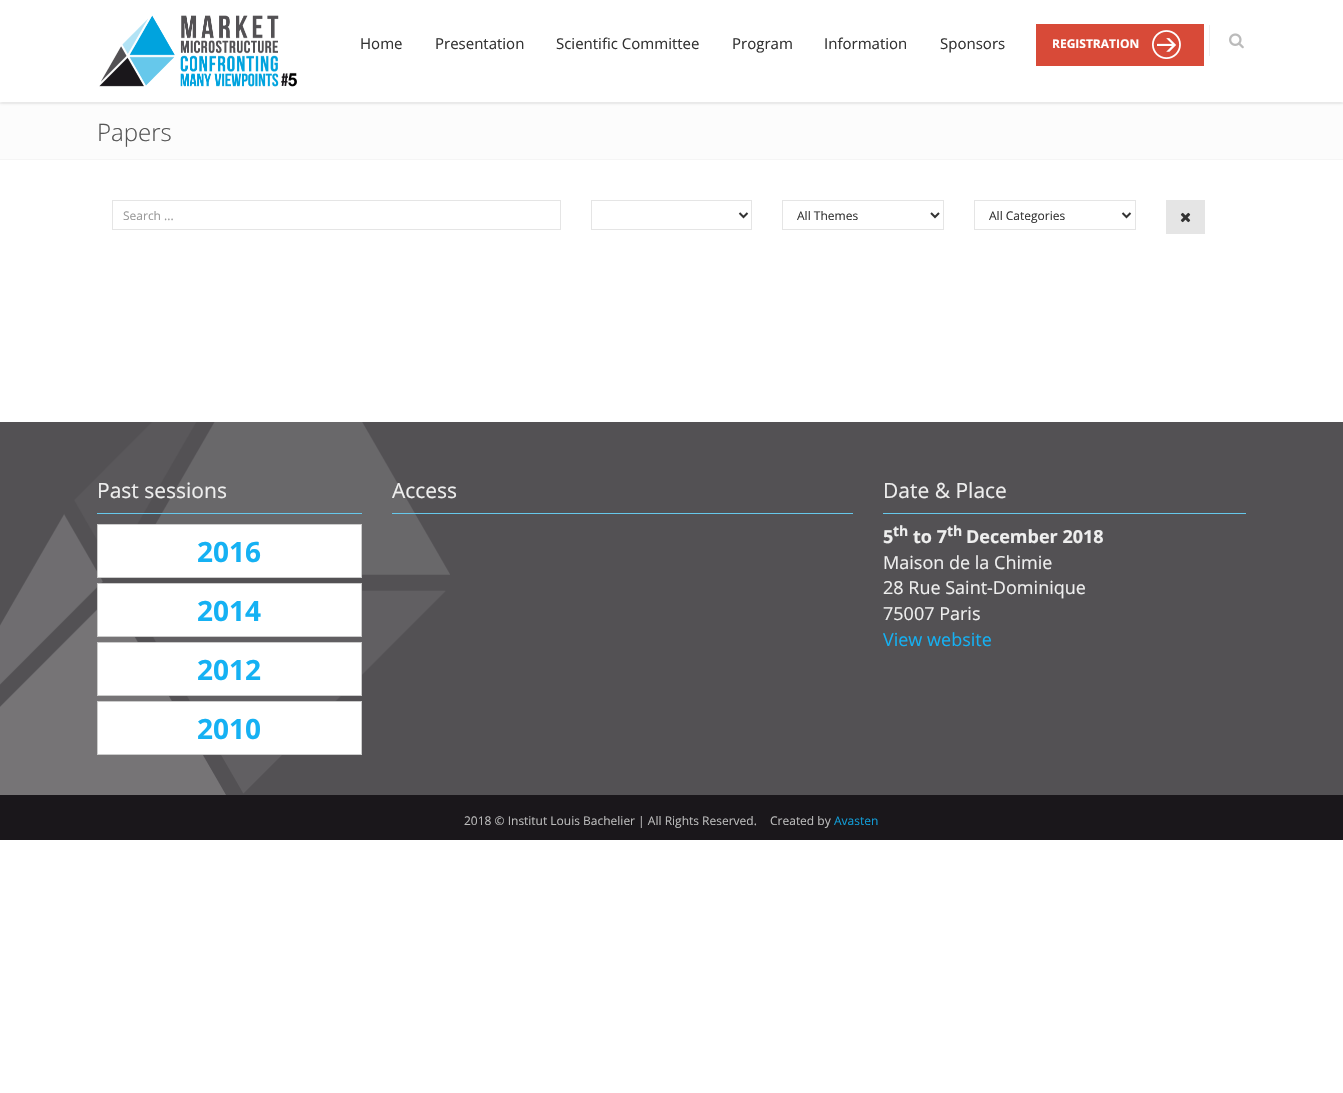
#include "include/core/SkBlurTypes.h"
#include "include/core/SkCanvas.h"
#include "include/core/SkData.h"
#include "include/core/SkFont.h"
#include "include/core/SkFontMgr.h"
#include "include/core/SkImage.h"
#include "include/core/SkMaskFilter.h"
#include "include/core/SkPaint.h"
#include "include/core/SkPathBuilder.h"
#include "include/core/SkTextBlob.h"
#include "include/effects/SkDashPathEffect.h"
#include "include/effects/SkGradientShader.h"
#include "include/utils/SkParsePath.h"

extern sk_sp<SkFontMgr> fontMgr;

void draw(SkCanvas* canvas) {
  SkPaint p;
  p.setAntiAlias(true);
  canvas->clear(SK_ColorWHITE);
  p.setColor(SkColorSetRGB(252, 252, 252));
  canvas->drawRect(SkRect::MakeLTRB(0, 104, 1343, 159), p);
  p.setColor(SkColorSetRGB(245, 245, 245));
  canvas->drawRect(SkRect::MakeLTRB(0, 103, 1343, 104), p);
  canvas->save();
  canvas->clipRect(SkRect::MakeLTRB(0, 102, 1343, 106));
  p.setColor(SkColorSetRGB(221, 221, 221));
  p.setMaskFilter(SkMaskFilter::MakeBlur(kNormal_SkBlurStyle, 1.5f));
  canvas->drawRect(SkRect::MakeLTRB(0, 1, 1343, 103), p);
  p.setMaskFilter(nullptr);
  canvas->restore();
  canvas->drawImageRect(SkImages::DeferredFromEncodedData(SkData::MakeFromFileName("images/1.png")), SkRect::MakeLTRB(99, 15, 297, 87), SkSamplingOptions());
  p.setColor(SkColorSetRGB(216, 74, 56));
  canvas->drawRect(SkRect::MakeLTRB(1036, 24, 1204, 66), p);
  canvas->drawImageRect(SkImages::DeferredFromEncodedData(SkData::MakeFromFileName("images/2.png")), SkRect::MakeLTRB(1152, 30, 1181, 59), SkSamplingOptions());
  p.setColor(SkColorSetRGB(238, 238, 238));
  canvas->drawRect(SkRect::MakeLTRB(1209, 25, 1210, 56), p);
  canvas->drawImageRect(SkImages::DeferredFromEncodedData(SkData::MakeFromFileName("images/3.png")), SkRect::MakeLTRB(1229, 33, 1244, 49), SkSamplingOptions());
  p.setColor(SkColorSetRGB(245, 245, 245));
  canvas->drawRect(SkRect::MakeLTRB(0, 159, 1343, 160), p);
  p.setStyle(SkPaint::kStroke_Style);
  p.setStrokeWidth(1);
  p.setColor(SkColorSetRGB(229, 229, 229));
  canvas->drawRect(SkRect::MakeLTRB(112.5f, 200.5f, 560.5f, 229.5f), p);
  canvas->drawRect(SkRect::MakeLTRB(591.5f, 200.5f, 751.5f, 229.5f), p);
  p.setStrokeWidth(2);
  p.setColor(SkColorSetRGB(51, 51, 51));
  canvas->drawPath(SkPathBuilder().moveTo(739.5f, 213).lineTo(743.5f, 217).lineTo(747.5f, 213).detach(), p);
  p.setStrokeWidth(1);
  p.setColor(SkColorSetRGB(229, 229, 229));
  canvas->drawRect(SkRect::MakeLTRB(782.5f, 200.5f, 943.5f, 229.5f), p);
  p.setStrokeWidth(2);
  p.setColor(SkColorSetRGB(51, 51, 51));
  canvas->drawPath(SkPathBuilder().moveTo(931, 213).lineTo(935, 217).lineTo(939, 213).detach(), p);
  p.setStrokeWidth(1);
  p.setColor(SkColorSetRGB(229, 229, 229));
  canvas->drawRect(SkRect::MakeLTRB(974.5f, 200.5f, 1135.5f, 229.5f), p);
  p.setStrokeWidth(2);
  p.setColor(SkColorSetRGB(51, 51, 51));
  canvas->drawPath(SkPathBuilder().moveTo(1122.5f, 213).lineTo(1126.5f, 217).lineTo(1130.5f, 213).detach(), p);
  p.setStyle(SkPaint::kFill_Style);
  p.setColor(SkColorSetRGB(229, 229, 229));
  canvas->drawRect(SkRect::MakeLTRB(1166, 200, 1205, 234), p);
  canvas->drawImageRect(SkImages::DeferredFromEncodedData(SkData::MakeFromFileName("images/4.png")), SkRect::MakeLTRB(1180, 212, 1191, 223), SkSamplingOptions());
  p.setColor(SkColorSetRGB(83, 81, 84));
  canvas->drawRect(SkRect::MakeLTRB(0, 422, 1343, 795), p);
  canvas->drawImageRect(SkImages::DeferredFromEncodedData(SkData::MakeFromFileName("images/5.png")), SkRect::MakeLTRB(0, 422, 450, 795), SkSamplingOptions());
  p.setColor(SkColorSetRGB(102, 200, 235));
  canvas->drawRect(SkRect::MakeLTRB(97, 513, 362, 514), p);
  p.setColor(SK_ColorWHITE);
  canvas->drawRect(SkRect::MakeLTRB(97.5f, 524.5f, 361.5f, 577.5f), p);
  p.setStyle(SkPaint::kStroke_Style);
  p.setStrokeWidth(1);
  p.setColor(SkColorSetRGB(204, 204, 204));
  canvas->drawRect(SkRect::MakeLTRB(97.5f, 524.5f, 361.5f, 577.5f), p);
  p.setStyle(SkPaint::kFill_Style);
  p.setColor(SK_ColorWHITE);
  canvas->drawRect(SkRect::MakeLTRB(97.5f, 583.5f, 361.5f, 636.5f), p);
  p.setStyle(SkPaint::kStroke_Style);
  p.setColor(SkColorSetRGB(204, 204, 204));
  canvas->drawRect(SkRect::MakeLTRB(97.5f, 583.5f, 361.5f, 636.5f), p);
  p.setStyle(SkPaint::kFill_Style);
  p.setColor(SK_ColorWHITE);
  canvas->drawRect(SkRect::MakeLTRB(97.5f, 642.5f, 361.5f, 695.5f), p);
  p.setStyle(SkPaint::kStroke_Style);
  p.setColor(SkColorSetRGB(204, 204, 204));
  canvas->drawRect(SkRect::MakeLTRB(97.5f, 642.5f, 361.5f, 695.5f), p);
  p.setStyle(SkPaint::kFill_Style);
  p.setColor(SK_ColorWHITE);
  canvas->drawRect(SkRect::MakeLTRB(97.5f, 701.5f, 361.5f, 754.5f), p);
  p.setStyle(SkPaint::kStroke_Style);
  p.setColor(SkColorSetRGB(204, 204, 204));
  canvas->drawRect(SkRect::MakeLTRB(97.5f, 701.5f, 361.5f, 754.5f), p);
  p.setStyle(SkPaint::kFill_Style);
  p.setColor(SkColorSetRGB(102, 200, 235));
  canvas->drawRect(SkRect::MakeLTRB(392, 513, 853, 514), p);
  canvas->drawRect(SkRect::MakeLTRB(883, 513, 1246, 514), p);
  p.setColor(SkColorSetRGB(26, 23, 27));
  canvas->drawRect(SkRect::MakeLTRB(0, 795, 1343, 840), p);
  SkFont font1(fontMgr->matchFamilyStyle("Open Sans", SkFontStyle::Normal()), 15);
  font1.setSubpixel(true);
  p.setColor(SkColorSetRGB(51, 51, 51));
  canvas->drawString("Home", 360, 49, font1, p);
  canvas->drawString("Presentation", 435, 49, font1, p);
  canvas->drawString("Scientific Committee", 556, 49, font1, p);
  canvas->drawString("Program", 732, 49, font1, p);
  canvas->drawString("Information", 824, 49, font1, p);
  canvas->drawString("Sponsors", 940, 49, font1, p);
  SkFont font2(fontMgr->matchFamilyStyle("Open Sans", SkFontStyle::Bold()), 12);
  font2.setSubpixel(true);
  p.setColor(SK_ColorWHITE);
  canvas->drawString("REGISTRATION", 1052, 48, font2, p);
  SkFont font3(fontMgr->matchFamilyStyle("Open Sans", SkFontStyle(300, SkFontStyle::kNormal_Width, SkFontStyle::kUpright_Slant)), 24);
  font3.setSubpixel(true);
  p.setColor(SkColorSetRGB(85, 85, 85));
  canvas->drawString("Papers", 97, 141, font3, p);
  SkFont font4(fontMgr->matchFamilyStyle("Open Sans", SkFontStyle::Normal()), 12);
  font4.setSubpixel(true);
  p.setColor(SkColorSetRGB(153, 153, 153));
  canvas->drawString("Search ...", 123, 220, font4, p);
  p.setColor(SkColorSetRGB(51, 51, 51));
  canvas->drawString("All Themes", 797, 220, font4, p);
  canvas->drawString("All Categories", 989, 220, font4, p);
  SkFont font5(fontMgr->matchFamilyStyle("Open Sans", SkFontStyle::Normal()), 21);
  font5.setSubpixel(true);
  p.setColor(SkColorSetRGB(238, 238, 238));
  canvas->drawString("Past sessions", 97, 498, font5, p);
  SkFont font6(fontMgr->matchFamilyStyle("Open Sans", SkFontStyle::Bold()), 28);
  font6.setSubpixel(true);
  p.setColor(SkColorSetRGB(21, 177, 243));
  canvas->drawString("2016", 197, 562, font6, p);
  canvas->drawString("2014", 197, 621, font6, p);
  canvas->drawString("2012", 197, 680, font6, p);
  canvas->drawString("2010", 197, 739, font6, p);
  p.setColor(SkColorSetRGB(238, 238, 238));
  canvas->drawString("Access", 392, 498, font5, p);
  canvas->drawString("Date & Place", 883, 498, font5, p);
  SkFont font7(fontMgr->matchFamilyStyle("Open Sans", SkFontStyle::Bold()), 18);
  font7.setSubpixel(true);
  canvas->drawString("5", 883, 543, font7, p);
  SkFont font8(fontMgr->matchFamilyStyle("Open Sans", SkFontStyle::Bold()), 14);
  font8.setSubpixel(true);
  canvas->drawString("th", 893, 536, font8, p);
  canvas->drawString("to 7", 913, 543, font7, p);
  canvas->drawString("th", 947, 536, font8, p);
  canvas->drawString("December 2018", 966, 543, font7, p);
  SkFont font9(fontMgr->matchFamilyStyle("Open Sans", SkFontStyle::Normal()), 18);
  font9.setSubpixel(true);
  canvas->drawString("Maison de la Chimie", 883, 569, font9, p);
  canvas->drawString("28 Rue Saint-Dominique", 883, 594, font9, p);
  canvas->drawString("75007 Paris", 883, 620, font9, p);
  p.setColor(SkColorSetRGB(21, 177, 243));
  canvas->drawString("View website", 883, 646, font9, p);
  p.setColor(SkColorSetRGB(187, 187, 187));
  canvas->drawString("2018 © Institut Louis Bachelier | All Rights Reserved.", 464, 825, font4, p);
  canvas->drawString("Created by", 770, 825, font4, p);
  p.setColor(SkColorSetRGB(17, 156, 214));
  canvas->drawString("Avasten", 834, 825, font4, p);
}
